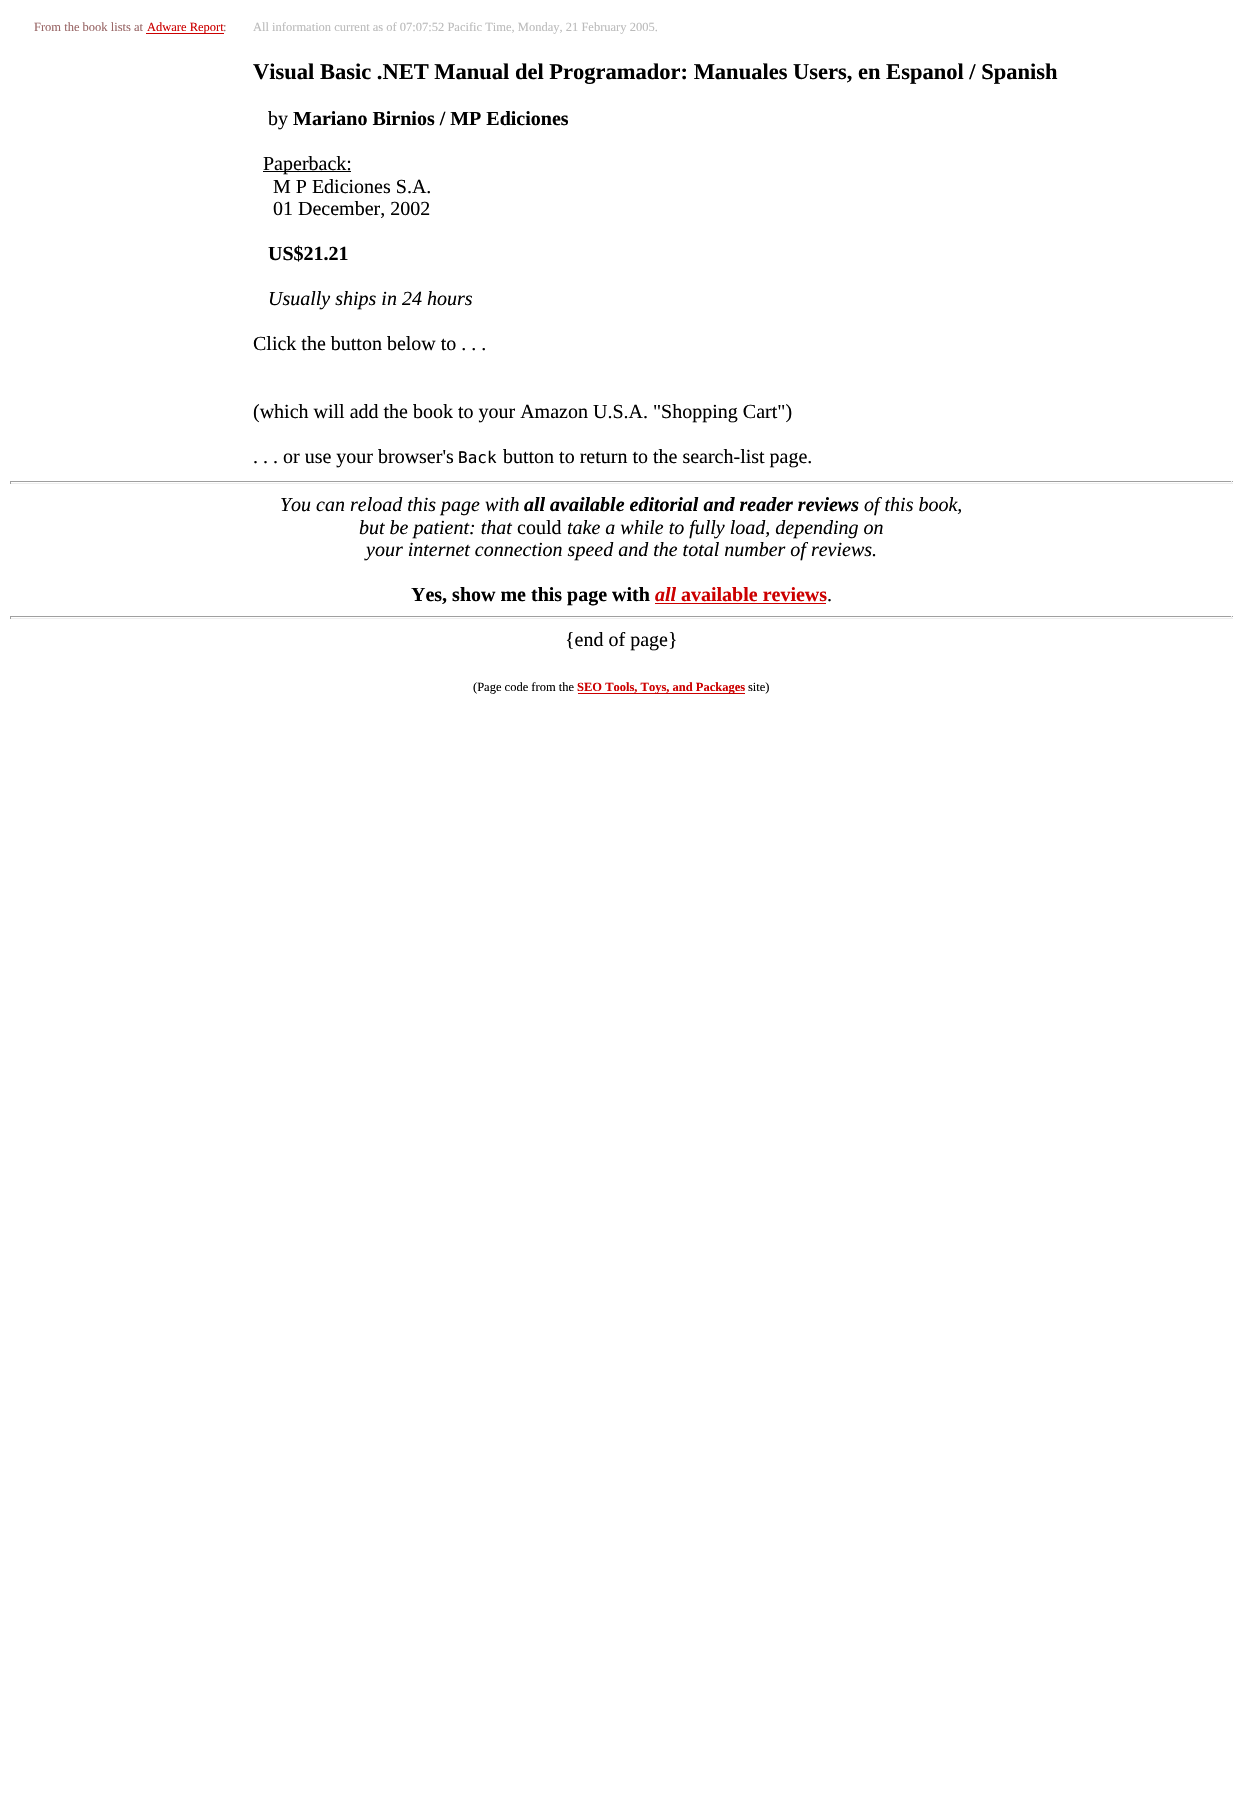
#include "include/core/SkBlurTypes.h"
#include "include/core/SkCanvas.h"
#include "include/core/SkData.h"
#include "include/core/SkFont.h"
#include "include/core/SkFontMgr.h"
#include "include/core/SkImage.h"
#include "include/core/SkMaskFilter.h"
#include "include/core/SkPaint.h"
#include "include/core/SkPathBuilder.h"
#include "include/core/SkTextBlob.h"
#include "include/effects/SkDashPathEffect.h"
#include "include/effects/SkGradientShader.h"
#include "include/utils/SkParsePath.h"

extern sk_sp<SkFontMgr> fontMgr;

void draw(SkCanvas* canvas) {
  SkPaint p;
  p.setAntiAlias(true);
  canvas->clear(SK_ColorWHITE);
  p.setColor(SkColorSetRGB(204, 0, 0));
  canvas->drawRect(SkRect::MakeLTRB(146, 33, 224, 34), p);
  p.setColor(SK_ColorBLACK);
  canvas->drawRect(SkRect::MakeLTRB(263, 171, 351, 172), p);
  p.setColor(SkColorSetRGB(159, 159, 159));
  canvas->drawRect(SkRect::MakeLTRB(10, 481, 1233, 482), p);
  p.setColor(SkColorSetRGB(238, 238, 238));
  canvas->drawRect(SkRect::MakeLTRB(1231, 481, 1232, 484), p);
  canvas->drawRect(SkRect::MakeLTRB(10, 483, 1233, 484), p);
  p.setColor(SkColorSetRGB(159, 159, 159));
  canvas->drawRect(SkRect::MakeLTRB(10, 481, 11, 484), p);
  p.setColor(SkColorSetRGB(204, 0, 0));
  canvas->drawRect(SkRect::MakeLTRB(655, 603, 826, 604), p);
  p.setColor(SkColorSetRGB(159, 159, 159));
  canvas->drawRect(SkRect::MakeLTRB(10, 616, 1233, 617), p);
  p.setColor(SkColorSetRGB(238, 238, 238));
  canvas->drawRect(SkRect::MakeLTRB(1231, 616, 1232, 619), p);
  canvas->drawRect(SkRect::MakeLTRB(10, 618, 1233, 619), p);
  p.setColor(SkColorSetRGB(159, 159, 159));
  canvas->drawRect(SkRect::MakeLTRB(10, 616, 11, 619), p);
  p.setColor(SkColorSetRGB(204, 0, 0));
  canvas->drawRect(SkRect::MakeLTRB(578, 693, 745, 694), p);
  SkFont font1(fontMgr->matchFamilyStyle("Liberation Serif", SkFontStyle::Normal()), 12.5f);
  font1.setSubpixel(true);
  p.setColor(SkColorSetRGB(153, 102, 102));
  canvas->drawString("From the book lists at", 34, 31, font1, p);
  p.setColor(SkColorSetRGB(204, 0, 0));
  canvas->drawString("Adware Report", 147, 31, font1, p);
  p.setColor(SkColorSetRGB(153, 102, 102));
  canvas->drawString(":", 223, 31, font1, p);
  p.setColor(SkColorSetRGB(187, 187, 187));
  canvas->drawString("All information current as of 07:07:52 Pacific Time, Monday, 21 February 2005.", 253, 31, font1, p);
  SkFont font2(fontMgr->matchFamilyStyle("Liberation Serif", SkFontStyle::Bold()), 22.5f);
  font2.setSubpixel(true);
  p.setColor(SK_ColorBLACK);
  canvas->drawString("Visual Basic .NET Manual del Programador: Manuales Users, en Espanol / Spanish", 253, 79, font2, p);
  SkFont font3(fontMgr->matchFamilyStyle("Liberation Serif", SkFontStyle::Normal()), 20);
  font3.setSubpixel(true);
  canvas->drawString("by", 268, 125, font3, p);
  SkFont font4(fontMgr->matchFamilyStyle("Liberation Serif", SkFontStyle::Bold()), 20);
  font4.setSubpixel(true);
  canvas->drawString("Mariano Birnios / MP Ediciones", 293, 125, font4, p);
  canvas->drawString("Paperback:", 263, 170, font3, p);
  canvas->drawString("M P Ediciones S.A.", 273, 193, font3, p);
  canvas->drawString("01 December, 2002", 273, 215, font3, p);
  canvas->drawString("US$21.21", 268, 260, font4, p);
  SkFont font5(fontMgr->matchFamilyStyle("Liberation Serif", SkFontStyle::Italic()), 20);
  font5.setSubpixel(true);
  canvas->drawString("Usually ships in 24 hours", 268, 305, font5, p);
  canvas->drawString("Click the button below to . . .", 253, 350, font3, p);
  canvas->drawString("(which will add the book to your Amazon U.S.A. \"Shopping Cart\")", 253, 418, font3, p);
  canvas->drawString(". . . or use your browser's", 253, 463, font3, p);
  SkFont font6(fontMgr->matchFamilyStyle("DejaVu Sans Mono", SkFontStyle::Normal()), 16);
  font6.setSubpixel(true);
  canvas->drawString("Back", 458, 463, font6, p);
  canvas->drawString("button to return to the search-list page.", 503, 463, font3, p);
  canvas->drawString("You can reload this page with", 280, 511, font5, p);
  SkFont font7(fontMgr->matchFamilyStyle("Liberation Serif", SkFontStyle::BoldItalic()), 20);
  font7.setSubpixel(true);
  canvas->drawString("all available editorial and reader reviews", 524, 511, font7, p);
  canvas->drawString("of this book,", 864, 511, font5, p);
  canvas->drawString("but be patient: that", 359, 534, font5, p);
  canvas->drawString("could", 517, 534, font3, p);
  canvas->drawString("take a while to fully load, depending on", 567, 534, font5, p);
  canvas->drawString("your internet connection speed and the total number of reviews.", 366, 556, font5, p);
  canvas->drawString("Yes, show me this page with", 411, 601, font4, p);
  p.setColor(SkColorSetRGB(204, 0, 0));
  canvas->drawString("all", 655, 601, font7, p);
  canvas->drawString("available reviews", 681, 601, font4, p);
  p.setColor(SK_ColorBLACK);
  canvas->drawString(".", 827, 601, font3, p);
  canvas->drawString("{end of page}", 565, 646, font3, p);
  canvas->drawString("(Page code from the", 473, 691, font1, p);
  SkFont font8(fontMgr->matchFamilyStyle("Liberation Serif", SkFontStyle::Bold()), 12.5f);
  font8.setSubpixel(true);
  p.setColor(SkColorSetRGB(204, 0, 0));
  canvas->drawString("SEO Tools, Toys, and Packages", 577, 691, font8, p);
  p.setColor(SK_ColorBLACK);
  canvas->drawString("site)", 748, 691, font1, p);
}
